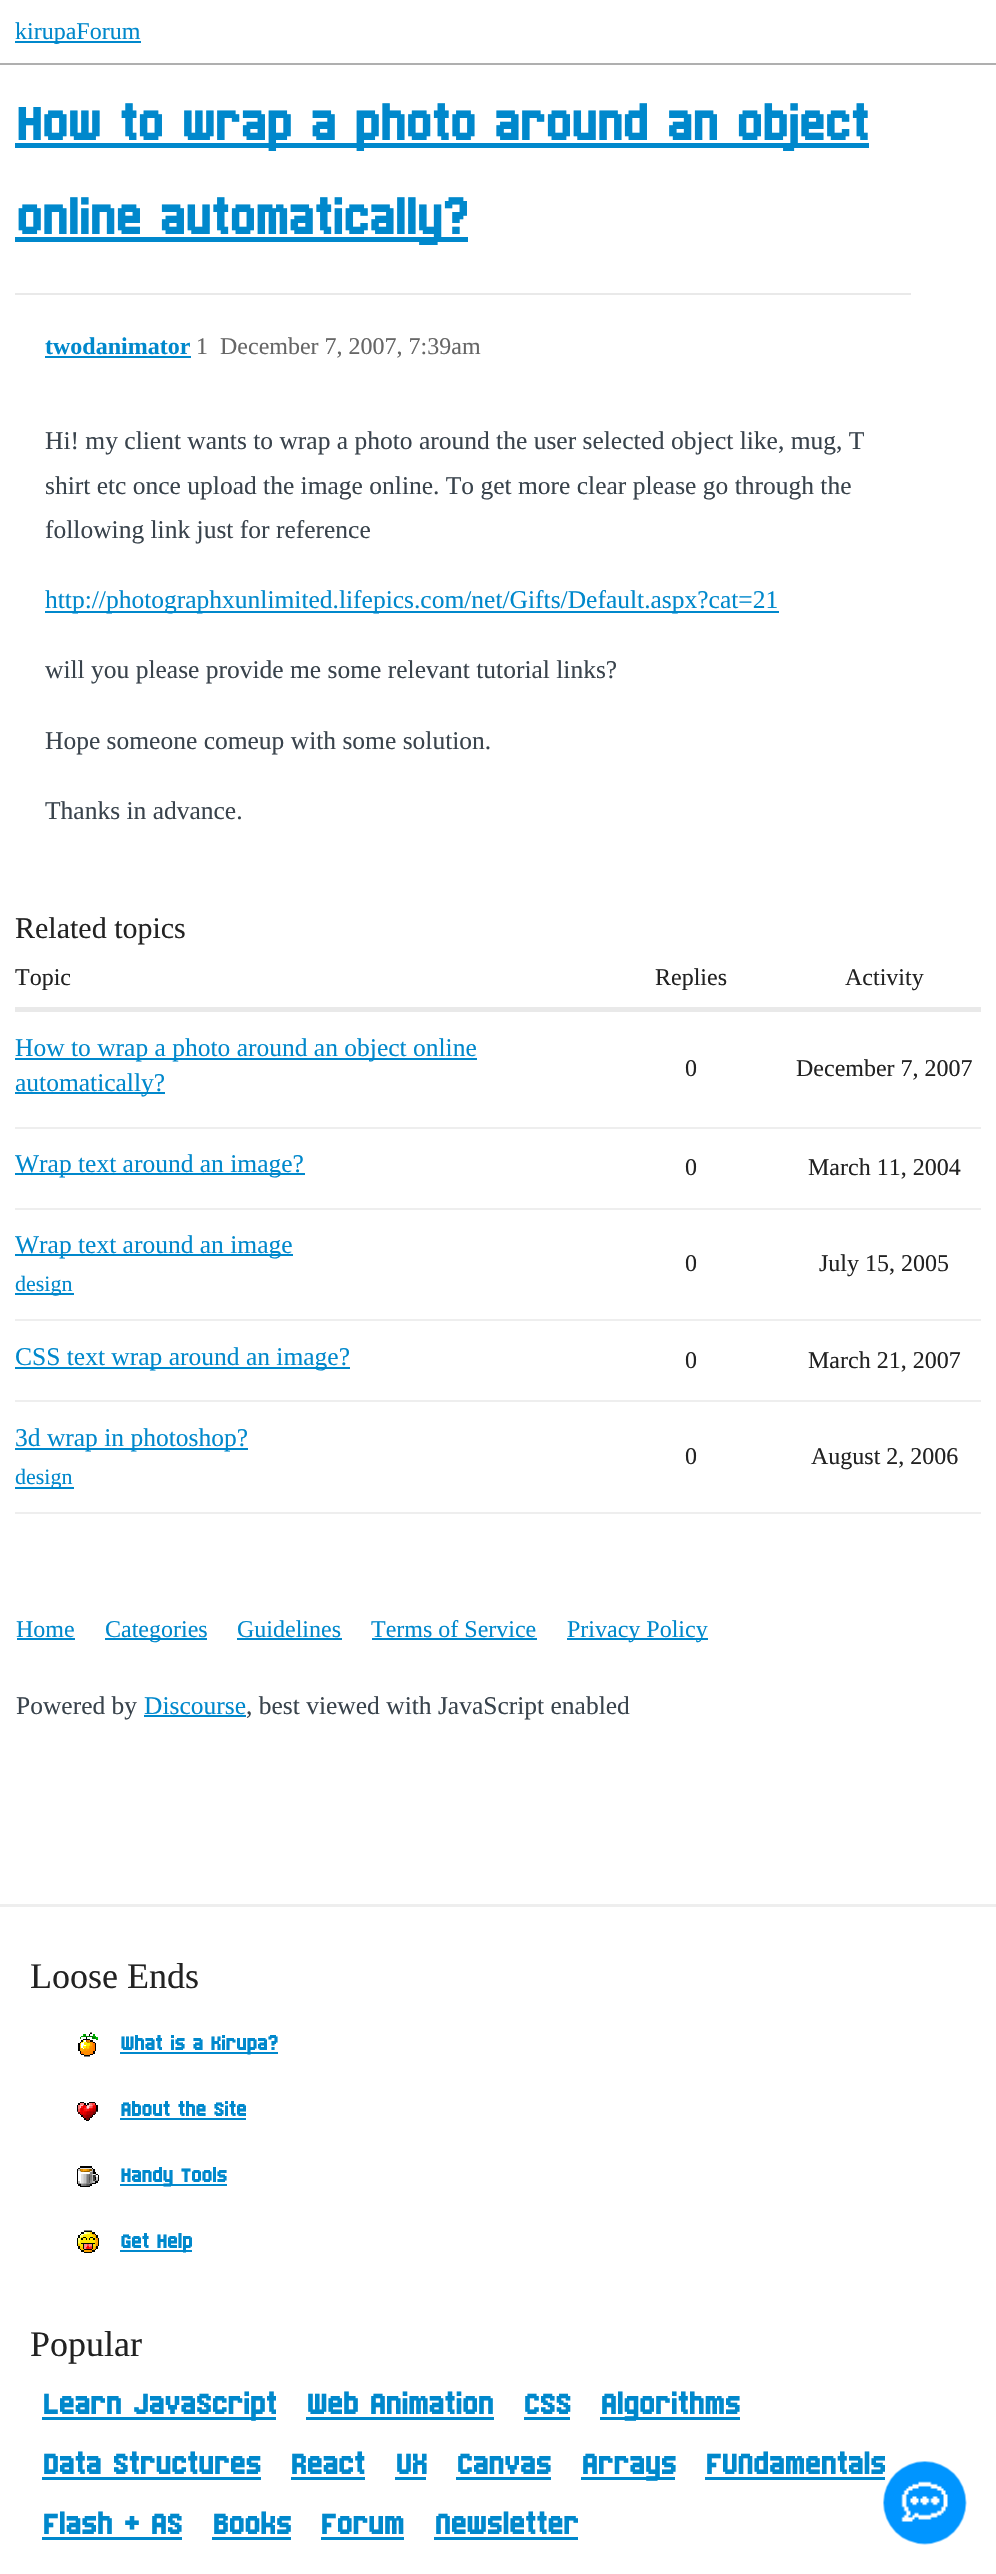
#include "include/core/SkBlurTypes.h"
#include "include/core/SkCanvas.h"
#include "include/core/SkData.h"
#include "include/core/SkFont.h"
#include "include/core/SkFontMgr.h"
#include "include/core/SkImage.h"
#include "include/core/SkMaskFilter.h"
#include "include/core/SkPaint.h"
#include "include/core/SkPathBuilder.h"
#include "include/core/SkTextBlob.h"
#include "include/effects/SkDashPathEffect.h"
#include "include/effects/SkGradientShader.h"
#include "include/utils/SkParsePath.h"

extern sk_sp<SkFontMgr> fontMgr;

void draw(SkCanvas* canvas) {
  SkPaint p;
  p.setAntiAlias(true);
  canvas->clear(SK_ColorWHITE);
  p.setColor(SkColorSetRGB(175, 175, 175));
  canvas->drawRect(SkRect::MakeLTRB(0, 63, 996, 65), p);
  p.setColor(SkColorSetRGB(0, 136, 204));
  canvas->drawRect(SkRect::MakeLTRB(15, 41, 141, 43), p);
  canvas->drawRect(SkRect::MakeLTRB(15, 143, 869, 148), p);
  canvas->drawRect(SkRect::MakeLTRB(15, 237, 468, 242), p);
  p.setColor(SkColorSetRGB(233, 233, 233));
  canvas->drawRect(SkRect::MakeLTRB(15, 293, 911, 295), p);
  p.setColor(SkColorSetRGB(0, 136, 204));
  canvas->drawRect(SkRect::MakeLTRB(45, 356, 191, 358), p);
  canvas->drawRect(SkRect::MakeLTRB(45, 611, 779, 613), p);
  p.setColor(SkColorSetRGB(233, 233, 233));
  canvas->drawRect(SkRect::MakeLTRB(15, 1007, 981, 1012), p);
  p.setColor(SkColorSetRGB(0, 136, 204));
  canvas->drawRect(SkRect::MakeLTRB(15, 1058, 477, 1060), p);
  canvas->drawRect(SkRect::MakeLTRB(15, 1092, 165, 1094), p);
  p.setColor(SkColorSetRGB(238, 238, 238));
  canvas->drawRect(SkRect::MakeLTRB(15, 1127, 981, 1129), p);
  p.setColor(SkColorSetRGB(0, 136, 204));
  canvas->drawRect(SkRect::MakeLTRB(15, 1173, 305, 1175), p);
  p.setColor(SkColorSetRGB(238, 238, 238));
  canvas->drawRect(SkRect::MakeLTRB(15, 1208, 981, 1210), p);
  p.setColor(SkColorSetRGB(0, 136, 204));
  canvas->drawRect(SkRect::MakeLTRB(15, 1254, 293, 1256), p);
  canvas->drawRect(SkRect::MakeLTRB(15, 1293, 74, 1295), p);
  p.setColor(SkColorSetRGB(238, 238, 238));
  canvas->drawRect(SkRect::MakeLTRB(15, 1319, 981, 1321), p);
  p.setColor(SkColorSetRGB(0, 136, 204));
  canvas->drawRect(SkRect::MakeLTRB(15, 1367, 350, 1369), p);
  p.setColor(SkColorSetRGB(238, 238, 238));
  canvas->drawRect(SkRect::MakeLTRB(15, 1400, 981, 1402), p);
  p.setColor(SkColorSetRGB(0, 136, 204));
  canvas->drawRect(SkRect::MakeLTRB(15, 1448, 248, 1450), p);
  canvas->drawRect(SkRect::MakeLTRB(15, 1487, 74, 1489), p);
  p.setColor(SkColorSetRGB(238, 238, 238));
  canvas->drawRect(SkRect::MakeLTRB(15, 1512, 981, 1514), p);
  p.setColor(SkColorSetRGB(0, 136, 204));
  canvas->drawRect(SkRect::MakeLTRB(17, 1638, 75, 1640), p);
  canvas->drawRect(SkRect::MakeLTRB(105, 1638, 207, 1640), p);
  canvas->drawRect(SkRect::MakeLTRB(237, 1638, 342, 1640), p);
  canvas->drawRect(SkRect::MakeLTRB(372, 1638, 537, 1640), p);
  canvas->drawRect(SkRect::MakeLTRB(567, 1638, 708, 1640), p);
  canvas->drawRect(SkRect::MakeLTRB(144, 1715, 246, 1717), p);
  p.setColor(SkColorSetRGB(238, 238, 238));
  canvas->drawRect(SkRect::MakeLTRB(0, 1904, 996, 1907), p);
  canvas->drawImageRect(SkImages::DeferredFromEncodedData(SkData::MakeFromFileName("images/1.png")), SkRect::MakeLTRB(78, 2032, 98, 2057), SkSamplingOptions());
  p.setColor(SkColorSetRGB(0, 136, 204));
  canvas->drawRect(SkRect::MakeLTRB(120, 2052, 278, 2054), p);
  canvas->drawImageRect(SkImages::DeferredFromEncodedData(SkData::MakeFromFileName("images/2.png")), SkRect::MakeLTRB(77, 2102, 98, 2121), SkSamplingOptions());
  canvas->drawRect(SkRect::MakeLTRB(120, 2118, 246, 2120), p);
  canvas->drawImageRect(SkImages::DeferredFromEncodedData(SkData::MakeFromFileName("images/3.png")), SkRect::MakeLTRB(77, 2166, 99, 2187), SkSamplingOptions());
  canvas->drawRect(SkRect::MakeLTRB(120, 2184, 227, 2186), p);
  canvas->drawImageRect(SkImages::DeferredFromEncodedData(SkData::MakeFromFileName("images/4.png")), SkRect::MakeLTRB(77, 2230, 99, 2253), SkSamplingOptions());
  canvas->drawRect(SkRect::MakeLTRB(120, 2250, 192, 2252), p);
  canvas->drawRect(SkRect::MakeLTRB(42, 2417, 276, 2420), p);
  canvas->drawRect(SkRect::MakeLTRB(306, 2417, 494, 2420), p);
  canvas->drawRect(SkRect::MakeLTRB(524, 2417, 570, 2420), p);
  canvas->drawRect(SkRect::MakeLTRB(600, 2417, 740, 2420), p);
  canvas->drawRect(SkRect::MakeLTRB(42, 2477, 261, 2480), p);
  canvas->drawRect(SkRect::MakeLTRB(291, 2477, 365, 2480), p);
  canvas->drawRect(SkRect::MakeLTRB(395, 2477, 426, 2480), p);
  canvas->drawRect(SkRect::MakeLTRB(456, 2477, 551, 2480), p);
  canvas->drawRect(SkRect::MakeLTRB(581, 2477, 675, 2480), p);
  canvas->drawRect(SkRect::MakeLTRB(705, 2477, 885, 2480), p);
  canvas->drawRect(SkRect::MakeLTRB(42, 2537, 182, 2540), p);
  canvas->drawRect(SkRect::MakeLTRB(212, 2537, 291, 2540), p);
  canvas->drawRect(SkRect::MakeLTRB(321, 2537, 404, 2540), p);
  canvas->drawRect(SkRect::MakeLTRB(434, 2537, 578, 2540), p);
  SkFont font1(fontMgr->matchFamilyStyle("Liberation Serif", SkFontStyle::Normal()), 24);
  font1.setSubpixel(true);
  canvas->drawString("kirupaForum", 15, 39, font1, p);
  SkFont font2(fontMgr->matchFamilyStyle("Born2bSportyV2", SkFontStyle(500, SkFontStyle::kNormal_Width, SkFontStyle::kUpright_Slant)), 58.8f);
  font2.setSubpixel(true);
  canvas->drawString("How to wrap a photo around an object", 15, 140, font2, p);
  canvas->drawString("online automatically?", 15, 234, font2, p);
  SkFont font3(fontMgr->matchFamilyStyle("Liberation Serif", SkFontStyle::Bold()), 24);
  font3.setSubpixel(true);
  canvas->drawString("twodanimator", 45, 354, font3, p);
  p.setColor(SkColorSetRGB(102, 102, 102));
  canvas->drawString("1", 196, 354, font1, p);
  canvas->drawString("December 7, 2007, 7:39am", 220, 354, font1, p);
  SkFont font4(fontMgr->matchFamilyStyle("Liberation Serif", SkFontStyle::Normal()), 25.5f);
  font4.setSubpixel(true);
  p.setColor(SkColorSetRGB(57, 67, 76));
  canvas->drawString("Hi! my client wants to wrap a photo around the user selected object like, mug, T", 45, 449, font4, p);
  canvas->drawString("shirt etc once upload the image online. To get more clear please go through the", 45, 494, font4, p);
  canvas->drawString("following link just for reference", 45, 538, font4, p);
  p.setColor(SkColorSetRGB(0, 136, 204));
  canvas->drawString("http://photographxunlimited.lifepics.com/net/Gifts/Default.aspx?cat=21", 45, 608, font4, p);
  p.setColor(SkColorSetRGB(57, 67, 76));
  canvas->drawString("will you please provide me some relevant tutorial links?", 45, 678, font4, p);
  canvas->drawString("Hope someone comeup with some solution.", 45, 749, font4, p);
  canvas->drawString("Thanks in advance.", 45, 819, font4, p);
  SkFont font5(fontMgr->matchFamilyStyle("Liberation Serif", SkFontStyle::Normal()), 30);
  font5.setSubpixel(true);
  p.setColor(SkColorSetRGB(34, 34, 34));
  canvas->drawString("Related topics", 15, 938, font5, p);
  canvas->drawString("Topic", 15, 985, font1, p);
  canvas->drawString("Replies", 655, 985, font1, p);
  canvas->drawString("Activity", 845, 985, font1, p);
  p.setColor(SkColorSetRGB(0, 136, 204));
  canvas->drawString("How to wrap a photo around an object online", 15, 1056, font4, p);
  canvas->drawString("automatically?", 15, 1091, font4, p);
  p.setColor(SkColorSetRGB(34, 34, 34));
  canvas->drawString("0", 685, 1076, font1, p);
  canvas->drawString("December 7, 2007", 796, 1076, font1, p);
  p.setColor(SkColorSetRGB(0, 136, 204));
  canvas->drawString("Wrap text around an image?", 15, 1172, font4, p);
  p.setColor(SkColorSetRGB(34, 34, 34));
  canvas->drawString("0", 685, 1175, font1, p);
  canvas->drawString("March 11, 2004", 808, 1175, font1, p);
  p.setColor(SkColorSetRGB(0, 136, 204));
  canvas->drawString("Wrap text around an image", 15, 1253, font4, p);
  SkFont font6(fontMgr->matchFamilyStyle("Liberation Serif", SkFontStyle::Normal()), 22);
  font6.setSubpixel(true);
  canvas->drawString("design", 15, 1291, font6, p);
  p.setColor(SkColorSetRGB(34, 34, 34));
  canvas->drawString("0", 685, 1271, font1, p);
  canvas->drawString("July 15, 2005", 819, 1271, font1, p);
  p.setColor(SkColorSetRGB(0, 136, 204));
  canvas->drawString("CSS text wrap around an image?", 15, 1365, font4, p);
  p.setColor(SkColorSetRGB(34, 34, 34));
  canvas->drawString("0", 685, 1368, font1, p);
  canvas->drawString("March 21, 2007", 808, 1368, font1, p);
  p.setColor(SkColorSetRGB(0, 136, 204));
  canvas->drawString("3d wrap in photoshop?", 15, 1446, font4, p);
  canvas->drawString("design", 15, 1484, font6, p);
  p.setColor(SkColorSetRGB(34, 34, 34));
  canvas->drawString("0", 685, 1464, font1, p);
  canvas->drawString("August 2, 2006", 811, 1464, font1, p);
  p.setColor(SkColorSetRGB(0, 136, 204));
  canvas->drawString("Home", 16, 1637, font1, p);
  canvas->drawString("Categories", 105, 1637, font1, p);
  canvas->drawString("Guidelines", 237, 1637, font1, p);
  canvas->drawString("Terms of Service", 371, 1637, font1, p);
  canvas->drawString("Privacy Policy", 567, 1637, font1, p);
  p.setColor(SkColorSetRGB(57, 67, 76));
  canvas->drawString("Powered by", 16, 1714, font4, p);
  p.setColor(SkColorSetRGB(0, 136, 204));
  canvas->drawString("Discourse", 144, 1714, font4, p);
  p.setColor(SkColorSetRGB(57, 67, 76));
  canvas->drawString(", best viewed with JavaScript enabled", 246, 1714, font4, p);
  SkFont font7(fontMgr->matchFamilyStyle("Liberation Serif", SkFontStyle::Normal()), 36);
  font7.setSubpixel(true);
  p.setColor(SkColorSetRGB(34, 34, 34));
  canvas->drawString("Loose Ends", 30, 1988, font7, p);
  SkFont font8(fontMgr->matchFamilyStyle("Born2bSportyV2", SkFontStyle(500, SkFontStyle::kNormal_Width, SkFontStyle::kUpright_Slant)), 24);
  font8.setSubpixel(true);
  p.setColor(SkColorSetRGB(0, 136, 204));
  canvas->drawString("What is a Kirupa?", 120, 2050, font8, p);
  canvas->drawString("About the Site", 120, 2116, font8, p);
  canvas->drawString("Handy Tools", 120, 2182, font8, p);
  canvas->drawString("Get Help", 120, 2248, font8, p);
  p.setColor(SkColorSetRGB(34, 34, 34));
  canvas->drawString("Popular", 30, 2356, font7, p);
  SkFont font9(fontMgr->matchFamilyStyle("Born2bSportyV2", SkFontStyle(500, SkFontStyle::kNormal_Width, SkFontStyle::kUpright_Slant)), 36);
  font9.setSubpixel(true);
  p.setColor(SkColorSetRGB(0, 136, 204));
  canvas->drawString("Learn JavaScript", 42, 2414, font9, p);
  canvas->drawString("Web Animation", 306, 2414, font9, p);
  canvas->drawString("CSS", 523, 2414, font9, p);
  canvas->drawString("Algorithms", 600, 2414, font9, p);
  canvas->drawString("Data Structures", 42, 2474, font9, p);
  canvas->drawString("React", 290, 2474, font9, p);
  canvas->drawString("UX", 395, 2474, font9, p);
  canvas->drawString("Canvas", 456, 2474, font9, p);
  canvas->drawString("Arrays", 581, 2474, font9, p);
  canvas->drawString("FUNdamentals", 705, 2474, font9, p);
  canvas->drawString("Flash + AS", 42, 2534, font9, p);
  canvas->drawString("Books", 212, 2534, font9, p);
  canvas->drawString("Forum", 320, 2534, font9, p);
  canvas->drawString("Newsletter", 434, 2534, font9, p);
  canvas->drawImageRect(SkImages::DeferredFromEncodedData(SkData::MakeFromFileName("images/5.png")), SkRect::MakeLTRB(883, 2461, 967, 2545), SkSamplingOptions());
}
